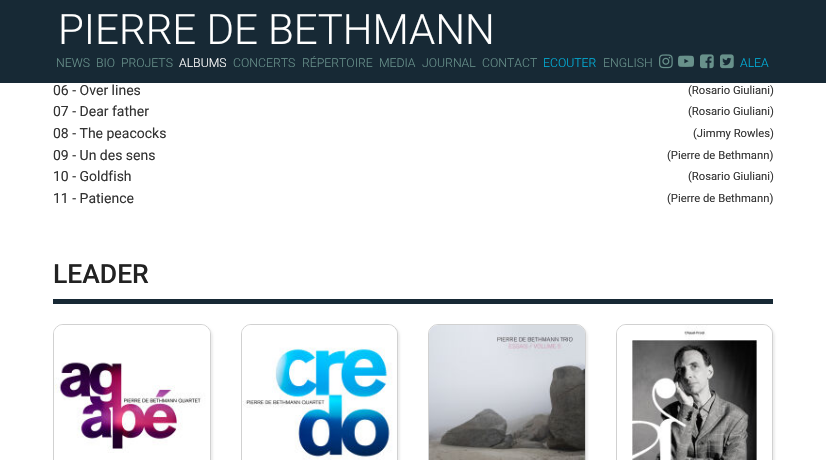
#include "include/core/SkBlurTypes.h"
#include "include/core/SkCanvas.h"
#include "include/core/SkData.h"
#include "include/core/SkFont.h"
#include "include/core/SkFontMgr.h"
#include "include/core/SkImage.h"
#include "include/core/SkMaskFilter.h"
#include "include/core/SkPaint.h"
#include "include/core/SkPathBuilder.h"
#include "include/core/SkTextBlob.h"
#include "include/effects/SkDashPathEffect.h"
#include "include/effects/SkGradientShader.h"
#include "include/utils/SkParsePath.h"

extern sk_sp<SkFontMgr> fontMgr;

void draw(SkCanvas* canvas) {
  SkPaint p;
  p.setAntiAlias(true);
  canvas->clear(SK_ColorWHITE);
  p.setColor(SkColorSetRGB(23, 41, 53));
  canvas->drawRect(SkRect::MakeLTRB(0, 0, 826, 83), p);
  canvas->drawImageRect(SkImages::DeferredFromEncodedData(SkData::MakeFromFileName("images/1.png")), SkRect::MakeLTRB(659, 54, 673, 69), SkSamplingOptions());
  canvas->drawImageRect(SkImages::DeferredFromEncodedData(SkData::MakeFromFileName("images/2.png")), SkRect::MakeLTRB(678, 55, 694, 67), SkSamplingOptions());
  canvas->drawImageRect(SkImages::DeferredFromEncodedData(SkData::MakeFromFileName("images/3.png")), SkRect::MakeLTRB(700, 54, 714, 69), SkSamplingOptions());
  canvas->drawImageRect(SkImages::DeferredFromEncodedData(SkData::MakeFromFileName("images/4.png")), SkRect::MakeLTRB(720, 54, 734, 69), SkSamplingOptions());
  canvas->drawRect(SkRect::MakeLTRB(53, 299, 773, 304), p);
  canvas->save();
  canvas->clipPath(SkPathBuilder(SkPathFillType::kEvenOdd).moveTo(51, 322).lineTo(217, 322).lineTo(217, 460).lineTo(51, 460).close().moveTo(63, 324).lineTo(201, 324).cubicTo(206.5f, 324, 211, 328.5f, 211, 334).lineTo(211, 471).cubicTo(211, 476.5f, 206.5f, 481, 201, 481).lineTo(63, 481).cubicTo(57.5f, 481, 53, 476.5f, 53, 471).lineTo(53, 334).cubicTo(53, 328.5f, 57.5f, 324, 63, 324).close().detach(), true);
  p.setColor(SkColorSetRGB(238, 238, 238));
  p.setMaskFilter(SkMaskFilter::MakeBlur(kNormal_SkBlurStyle, 1));
  canvas->drawRoundRect(SkRect::MakeLTRB(55, 326, 213, 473), 10, 10, p);
  p.setMaskFilter(nullptr);
  canvas->restore();
  p.setStyle(SkPaint::kStroke_Style);
  p.setStrokeWidth(1);
  p.setColor(SkColorSetRGB(209, 209, 209));
  canvas->drawRoundRect(SkRect::MakeLTRB(53.5f, 324.5f, 210.5f, 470.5f), 9.5f, 9.5f, p);
  canvas->drawImageRect(SkImages::DeferredFromEncodedData(SkData::MakeFromFileName("images/5.png")), SkRect::MakeLTRB(54, 325, 210, 453), SkSamplingOptions());
  p.setStyle(SkPaint::kFill_Style);
  p.setColor(SkColorSetRGB(238, 238, 238));
  p.setMaskFilter(SkMaskFilter::MakeBlur(kNormal_SkBlurStyle, 1));
  canvas->drawRoundRect(SkRect::MakeLTRB(243, 326, 400, 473), 10, 10, p);
  p.setMaskFilter(nullptr);
  p.setStyle(SkPaint::kStroke_Style);
  p.setColor(SkColorSetRGB(209, 209, 209));
  canvas->drawRoundRect(SkRect::MakeLTRB(241.5f, 324.5f, 397.5f, 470.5f), 9.5f, 9.5f, p);
  canvas->drawImageRect(SkImages::DeferredFromEncodedData(SkData::MakeFromFileName("images/6.png")), SkRect::MakeLTRB(242, 325, 397, 460), SkSamplingOptions());
  p.setStyle(SkPaint::kFill_Style);
  p.setColor(SkColorSetRGB(238, 238, 238));
  p.setMaskFilter(SkMaskFilter::MakeBlur(kNormal_SkBlurStyle, 1));
  canvas->drawRoundRect(SkRect::MakeLTRB(430, 326, 588, 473), 10, 10, p);
  p.setMaskFilter(nullptr);
  p.setStyle(SkPaint::kStroke_Style);
  p.setColor(SkColorSetRGB(209, 209, 209));
  canvas->drawRoundRect(SkRect::MakeLTRB(428.5f, 324.5f, 585.5f, 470.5f), 9.5f, 9.5f, p);
  canvas->drawImageRect(SkImages::DeferredFromEncodedData(SkData::MakeFromFileName("images/7.png")), SkRect::MakeLTRB(429, 325, 585, 460), SkSamplingOptions());
  p.setStyle(SkPaint::kFill_Style);
  p.setColor(SkColorSetRGB(238, 238, 238));
  p.setMaskFilter(SkMaskFilter::MakeBlur(kNormal_SkBlurStyle, 1));
  canvas->drawRoundRect(SkRect::MakeLTRB(618, 326, 775, 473), 10, 10, p);
  p.setMaskFilter(nullptr);
  p.setStyle(SkPaint::kStroke_Style);
  p.setColor(SkColorSetRGB(209, 209, 209));
  canvas->drawRoundRect(SkRect::MakeLTRB(616.5f, 324.5f, 772.5f, 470.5f), 9.5f, 9.5f, p);
  canvas->drawImageRect(SkImages::DeferredFromEncodedData(SkData::MakeFromFileName("images/8.png")), SkRect::MakeLTRB(617, 325, 772, 460), SkSamplingOptions());
  SkFont font1(fontMgr->matchFamilyStyle("Roboto", SkFontStyle(300, SkFontStyle::kNormal_Width, SkFontStyle::kUpright_Slant)), 42);
  font1.setSubpixel(true);
  p.setStyle(SkPaint::kFill_Style);
  p.setColor(SK_ColorWHITE);
  canvas->drawString("PIERRE DE BETHMANN", 58, 44, font1, p);
  SkFont font2(fontMgr->matchFamilyStyle("Roboto", SkFontStyle(300, SkFontStyle::kNormal_Width, SkFontStyle::kUpright_Slant)), 12.25f);
  font2.setSubpixel(true);
  p.setColor(SkColorSetRGB(104, 145, 139));
  canvas->drawString("NEWS", 56, 67, font2, p);
  canvas->drawString("BIO", 96, 67, font2, p);
  canvas->drawString("PROJETS", 121, 67, font2, p);
  p.setColor(SK_ColorWHITE);
  canvas->drawString("ALBUMS", 179, 67, font2, p);
  p.setColor(SkColorSetRGB(104, 145, 139));
  canvas->drawString("CONCERTS", 233, 67, font2, p);
  canvas->drawString("RÉPERTOIRE", 302, 67, font2, p);
  canvas->drawString("MEDIA", 379, 67, font2, p);
  canvas->drawString("JOURNAL", 422, 67, font2, p);
  canvas->drawString("CONTACT", 482, 67, font2, p);
  p.setColor(SkColorSetRGB(0, 178, 221));
  canvas->drawString("ECOUTER", 543, 67, font2, p);
  p.setColor(SkColorSetRGB(104, 145, 139));
  canvas->drawString("ENGLISH", 603, 67, font2, p);
  p.setColor(SkColorSetRGB(0, 178, 221));
  canvas->drawString("ALEA", 740, 67, font2, p);
  SkFont font3(fontMgr->matchFamilyStyle("Roboto", SkFontStyle::Normal()), 14);
  font3.setSubpixel(true);
  p.setColor(SkColorSetRGB(51, 51, 51));
  canvas->drawString("06 - Over lines", 53, 95, font3, p);
  SkFont font4(fontMgr->matchFamilyStyle("Roboto", SkFontStyle::Normal()), 11.25f);
  font4.setSubpixel(true);
  canvas->drawString("(Rosario Giuliani)", 688, 94, font4, p);
  canvas->drawString("07 - Dear father", 53, 116, font3, p);
  canvas->drawString("(Rosario Giuliani)", 688, 115, font4, p);
  canvas->drawString("08 - The peacocks", 53, 138, font3, p);
  canvas->drawString("(Jimmy Rowles)", 693, 137, font4, p);
  canvas->drawString("09 - Un des sens", 53, 160, font3, p);
  canvas->drawString("(Pierre de Bethmann)", 667, 159, font4, p);
  canvas->drawString("10 - Goldfish", 53, 181, font3, p);
  canvas->drawString("(Rosario Giuliani)", 688, 180, font4, p);
  canvas->drawString("11 - Patience", 53, 203, font3, p);
  canvas->drawString("(Pierre de Bethmann)", 667, 202, font4, p);
  SkFont font5(fontMgr->matchFamilyStyle("Roboto", SkFontStyle(500, SkFontStyle::kNormal_Width, SkFontStyle::kUpright_Slant)), 26.5f);
  font5.setSubpixel(true);
  p.setColor(SkColorSetRGB(34, 34, 34));
  canvas->drawString("LEADER", 53, 283, font5, p);
}
